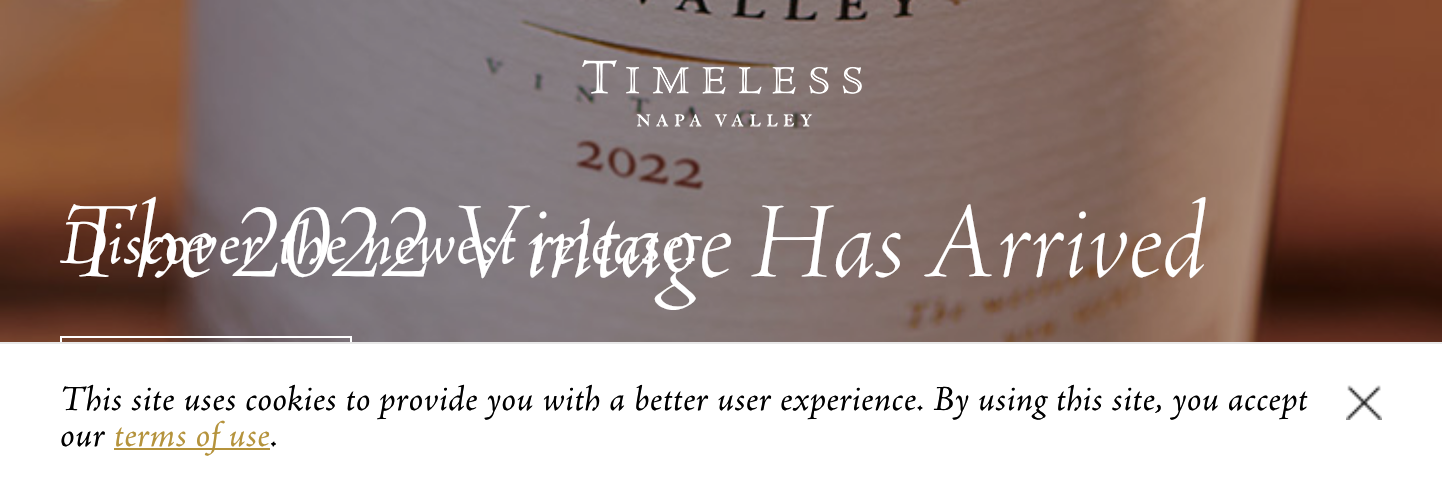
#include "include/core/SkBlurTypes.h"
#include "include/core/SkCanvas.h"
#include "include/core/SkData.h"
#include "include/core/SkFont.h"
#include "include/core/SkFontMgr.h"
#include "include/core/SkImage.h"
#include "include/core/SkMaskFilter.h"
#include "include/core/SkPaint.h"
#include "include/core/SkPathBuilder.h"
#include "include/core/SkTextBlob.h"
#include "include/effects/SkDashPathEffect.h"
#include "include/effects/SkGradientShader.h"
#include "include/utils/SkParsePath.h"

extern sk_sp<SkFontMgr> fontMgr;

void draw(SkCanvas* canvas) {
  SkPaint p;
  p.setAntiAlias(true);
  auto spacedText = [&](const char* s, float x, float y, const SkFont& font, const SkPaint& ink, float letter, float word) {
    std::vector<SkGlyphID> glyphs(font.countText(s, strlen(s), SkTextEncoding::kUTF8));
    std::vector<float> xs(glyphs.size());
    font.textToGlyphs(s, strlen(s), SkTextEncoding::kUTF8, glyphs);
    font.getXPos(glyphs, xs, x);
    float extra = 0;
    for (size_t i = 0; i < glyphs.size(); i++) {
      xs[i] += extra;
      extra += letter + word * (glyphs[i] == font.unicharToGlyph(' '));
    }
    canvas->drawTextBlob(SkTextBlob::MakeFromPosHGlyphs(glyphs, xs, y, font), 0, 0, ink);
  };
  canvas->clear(SK_ColorWHITE);
  canvas->drawImageRect(SkImages::DeferredFromEncodedData(SkData::MakeFromFileName("images/2.png")), SkRect::MakeLTRB(0, 0, 1442, 342), SkSamplingOptions());
  canvas->drawImageRect(SkImages::DeferredFromEncodedData(SkData::MakeFromFileName("images/1.png")), SkRect::MakeLTRB(582, 60, 862, 127), SkSamplingOptions());
  p.setStyle(SkPaint::kStroke_Style);
  p.setStrokeWidth(2);
  p.setColor(SK_ColorWHITE);
  canvas->drawRect(SkRect::MakeLTRB(61, 337, 351, 419), p);
  p.setStyle(SkPaint::kFill_Style);
  p.setColor(SkColorSetRGB(232, 232, 232));
  canvas->drawRect(SkRect::MakeLTRB(0, 342, 1442, 344), p);
  p.setColor(SkColorSetRGB(181, 147, 60));
  canvas->drawRect(SkRect::MakeLTRB(114, 448, 270, 450), p);
  canvas->drawImageRect(SkImages::DeferredFromEncodedData(SkData::MakeFromFileName("images/3.png")), SkRect::MakeLTRB(1346, 385, 1382, 420), SkSamplingOptions());
  SkFont font1(fontMgr->matchFamilyStyle("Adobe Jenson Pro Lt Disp", SkFontStyle(300, SkFontStyle::kNormal_Width, SkFontStyle::kItalic_Slant)), 113.6f);
  font1.setSubpixel(true);
  p.setColor(SK_ColorWHITE);
  spacedText("The 2022 Vintage Has Arrived", 60, 276, font1, p, 0.35f, 0);
  SkFont font2(fontMgr->matchFamilyStyle("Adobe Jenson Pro", SkFontStyle::Italic()), 64);
  font2.setSubpixel(true);
  spacedText("Discover the newest release.", 60, 263, font2, p, 0.35f, 0);
  SkFont font3(fontMgr->matchFamilyStyle("Adobe Jenson Pro", SkFontStyle::Italic()), 36);
  font3.setSubpixel(true);
  p.setColor(SK_ColorBLACK);
  spacedText("This site uses cookies to provide you with a better user experience. By using this site, you accept", 60, 410, font3, p, 0.35f, 0);
  spacedText("our", 60, 446, font3, p, 0.35f, 0);
  p.setColor(SkColorSetRGB(181, 147, 60));
  spacedText("terms of use", 114, 446, font3, p, 0.35f, 0);
  p.setColor(SK_ColorBLACK);
  spacedText(".", 270, 446, font3, p, 0.35f, 0);
}
